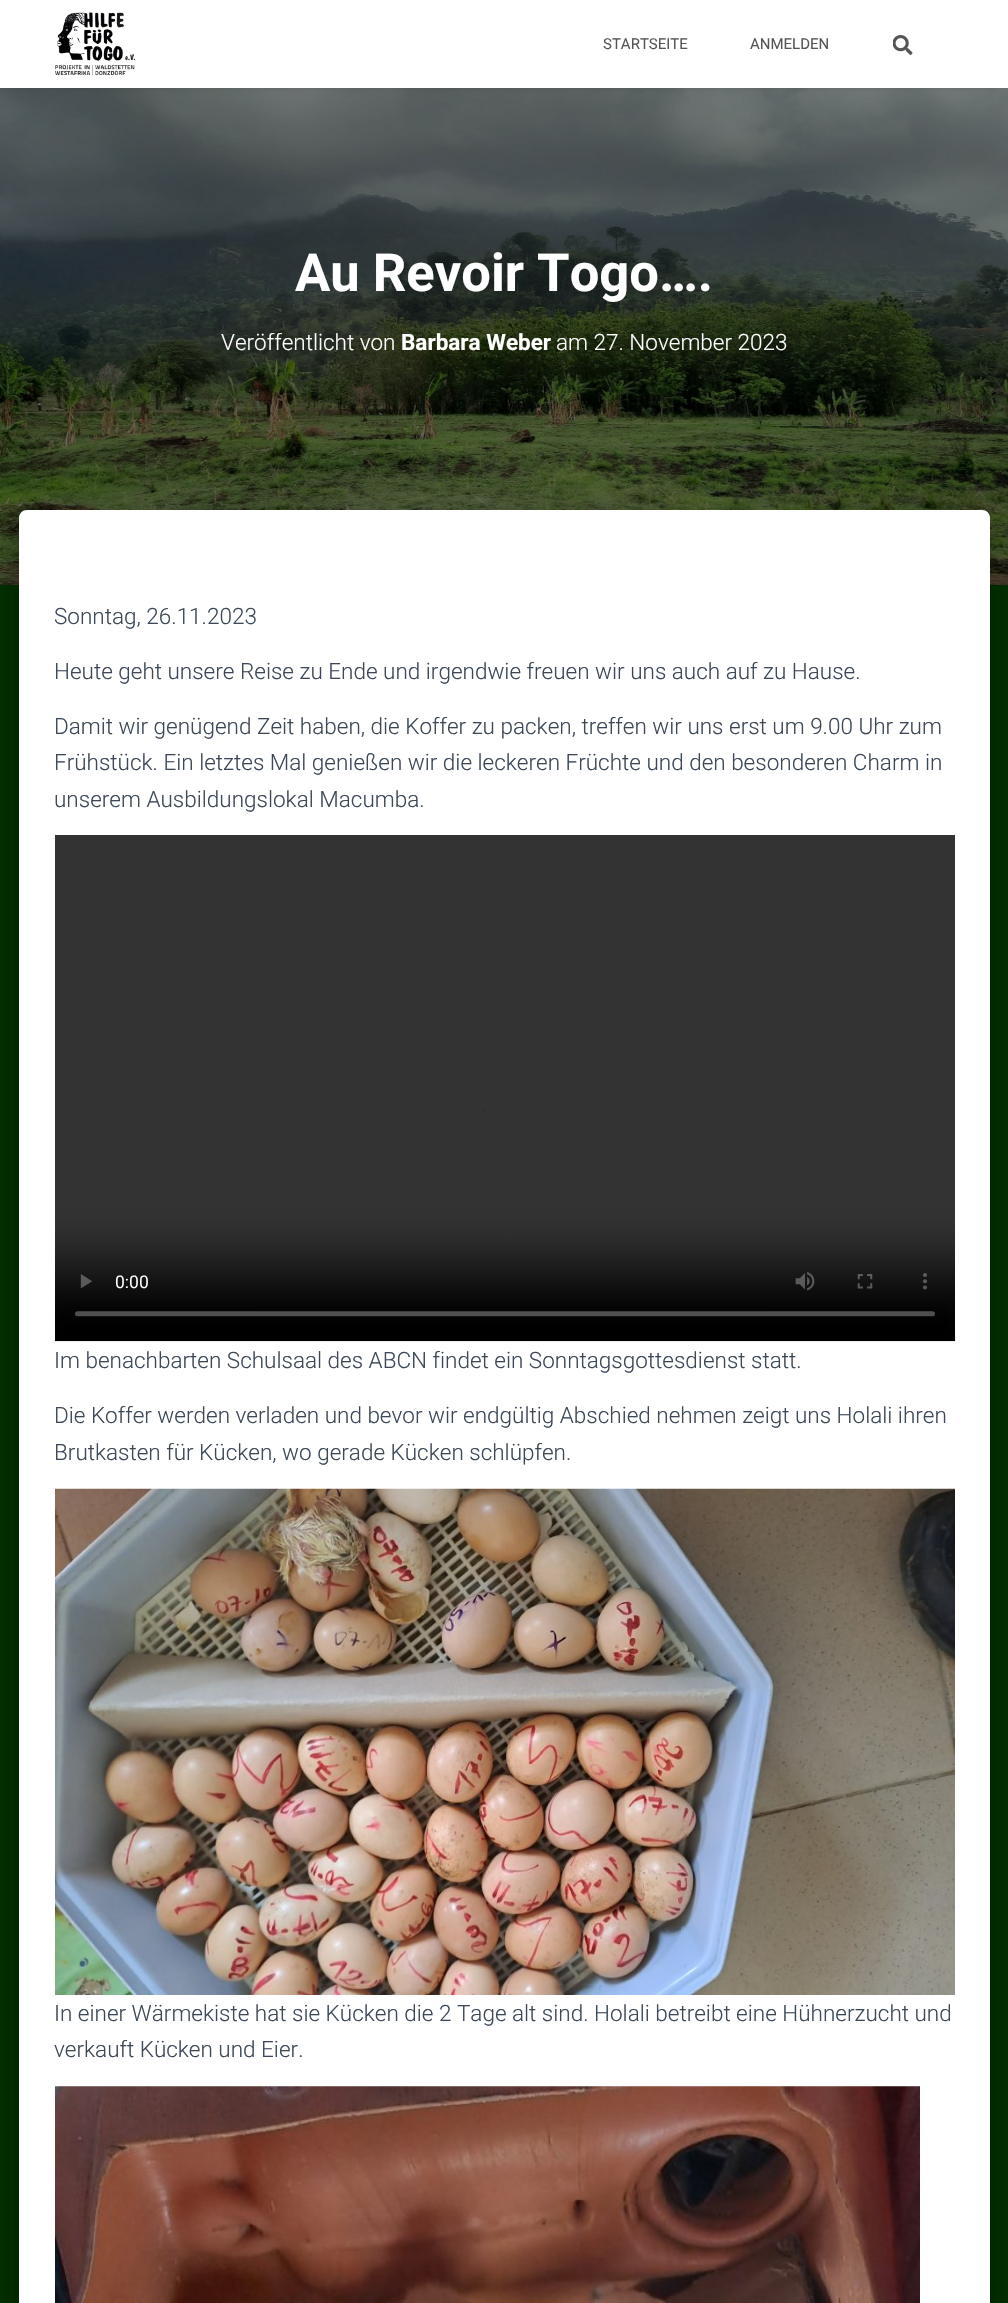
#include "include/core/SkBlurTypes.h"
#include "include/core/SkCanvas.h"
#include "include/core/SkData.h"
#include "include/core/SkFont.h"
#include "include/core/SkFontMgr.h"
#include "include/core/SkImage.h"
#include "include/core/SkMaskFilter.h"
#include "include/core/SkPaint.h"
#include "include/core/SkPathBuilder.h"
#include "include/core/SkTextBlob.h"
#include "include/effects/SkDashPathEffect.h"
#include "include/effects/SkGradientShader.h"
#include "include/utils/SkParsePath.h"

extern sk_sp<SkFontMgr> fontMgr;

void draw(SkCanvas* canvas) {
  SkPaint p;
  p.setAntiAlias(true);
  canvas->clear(SkColorSetRGB(2, 48, 0));
  canvas->drawImageRect(SkImages::DeferredFromEncodedData(SkData::MakeFromFileName("images/3.png")), SkRect::MakeLTRB(0, 88, 1008, 585), SkSamplingOptions());
  p.setColor(SkColorSetARGB(107, 0, 0, 0));
  p.setMaskFilter(SkMaskFilter::MakeBlur(kNormal_SkBlurStyle, 6));
  canvas->drawRect(SkRect::MakeLTRB(8, 9, 1001, 81), p);
  p.setMaskFilter(nullptr);
  p.setColor(SK_ColorWHITE);
  canvas->drawRect(SkRect::MakeLTRB(0, 0, 1008, 88), p);
  canvas->drawImageRect(SkImages::DeferredFromEncodedData(SkData::MakeFromFileName("images/1.png")), SkRect::MakeLTRB(55, 12, 135, 75), SkSamplingOptions());
  canvas->drawImageRect(SkImages::DeferredFromEncodedData(SkData::MakeFromFileName("images/2.png")), SkRect::MakeLTRB(893, 35, 913, 55), SkSamplingOptions());
  p.setColor(SkColorSetARGB(51, 0, 0, 0));
  p.setMaskFilter(SkMaskFilter::MakeBlur(kNormal_SkBlurStyle, 6));
  canvas->drawRoundRect(SkRect::MakeLTRB(25, 526, 984, 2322), 1, 1, p);
  p.setMaskFilter(nullptr);
  p.setColor(SkColorSetARGB(31, 0, 0, 0));
  p.setMaskFilter(SkMaskFilter::MakeBlur(kNormal_SkBlurStyle, 19));
  canvas->drawRoundRect(SkRect::MakeLTRB(13, 511, 996, 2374), 14, 14, p);
  p.setMaskFilter(nullptr);
  p.setColor(SkColorSetARGB(36, 0, 0, 0));
  p.setMaskFilter(SkMaskFilter::MakeBlur(kNormal_SkBlurStyle, 15));
  canvas->drawRoundRect(SkRect::MakeLTRB(16, 528, 993, 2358), 10, 10, p);
  p.setMaskFilter(nullptr);
  p.setColor(SK_ColorWHITE);
  canvas->drawPath(SkPathBuilder().moveTo(27, 510).lineTo(982, 510).cubicTo(986.5f, 510, 990, 513.5f, 990, 518).lineTo(990, 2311).lineTo(19, 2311).lineTo(19, 518).cubicTo(19, 513.5f, 22.5f, 510, 27, 510).close().detach(), p);
  canvas->drawImageRect(SkImages::DeferredFromEncodedData(SkData::MakeFromFileName("images/4.png")), SkRect::MakeLTRB(55, 835, 955, 1342), SkSamplingOptions());
  canvas->drawImageRect(SkImages::DeferredFromEncodedData(SkData::MakeFromFileName("images/5.png")), SkRect::MakeLTRB(55, 1488, 955, 1995), SkSamplingOptions());
  canvas->drawImageRect(SkImages::DeferredFromEncodedData(SkData::MakeFromFileName("images/6.png")), SkRect::MakeLTRB(55, 2086, 920, 2303), SkSamplingOptions());
  SkFont font1(fontMgr->matchFamilyStyle("Roboto", SkFontStyle::Normal()), 15);
  font1.setSubpixel(true);
  p.setColor(SkColorSetRGB(85, 85, 85));
  canvas->drawString("STARTSEITE", 603, 49, font1, p);
  canvas->drawString("ANMELDEN", 750, 49, font1, p);
  SkFont font2(fontMgr->matchFamilyStyle("Roboto", SkFontStyle::Bold()), 52.5f);
  font2.setSubpixel(true);
  p.setColor(SK_ColorWHITE);
  canvas->drawString("Au Revoir Togo….", 295, 291, font2, p);
  SkFont font3(fontMgr->matchFamilyStyle("Roboto", SkFontStyle(300, SkFontStyle::kNormal_Width, SkFontStyle::kUpright_Slant)), 22.5f);
  font3.setSubpixel(true);
  canvas->drawString("Veröffentlicht von", 221, 350, font3, p);
  SkFont font4(fontMgr->matchFamilyStyle("Roboto", SkFontStyle::Bold()), 22.5f);
  font4.setSubpixel(true);
  canvas->drawString("Barbara Weber", 401, 350, font4, p);
  canvas->drawString("am 27. November 2023", 556, 350, font3, p);
  p.setColor(SkColorSetRGB(60, 72, 88));
  canvas->drawString("Sonntag, 26.11.2023", 54, 624, font3, p);
  canvas->drawString("Heute geht unsere Reise zu Ende und irgendwie freuen wir uns auch auf zu Hause.", 54, 679, font3, p);
  canvas->drawString("Damit wir genügend Zeit haben, die Koffer zu packen, treffen wir uns erst um 9.00 Uhr zum", 54, 734, font3, p);
  canvas->drawString("Frühstück. Ein letztes Mal genießen wir die leckeren Früchte und den besonderen Charm in", 54, 770, font3, p);
  canvas->drawString("unserem Ausbildungslokal Macumba.", 54, 807, font3, p);
  canvas->drawString("Im benachbarten Schulsaal des ABCN findet ein Sonntagsgottesdienst statt.", 54, 1368, font3, p);
  canvas->drawString("Die Koffer werden verladen und bevor wir endgültig Abschied nehmen zeigt uns Holali ihren", 54, 1423, font3, p);
  canvas->drawString("Brutkasten für Kücken, wo gerade Kücken schlüpfen.", 54, 1460, font3, p);
  canvas->drawString("In einer Wärmekiste hat sie Kücken die 2 Tage alt sind. Holali betreibt eine Hühnerzucht und", 54, 2021, font3, p);
  canvas->drawString("verkauft Kücken und Eier.", 54, 2057, font3, p);
}
